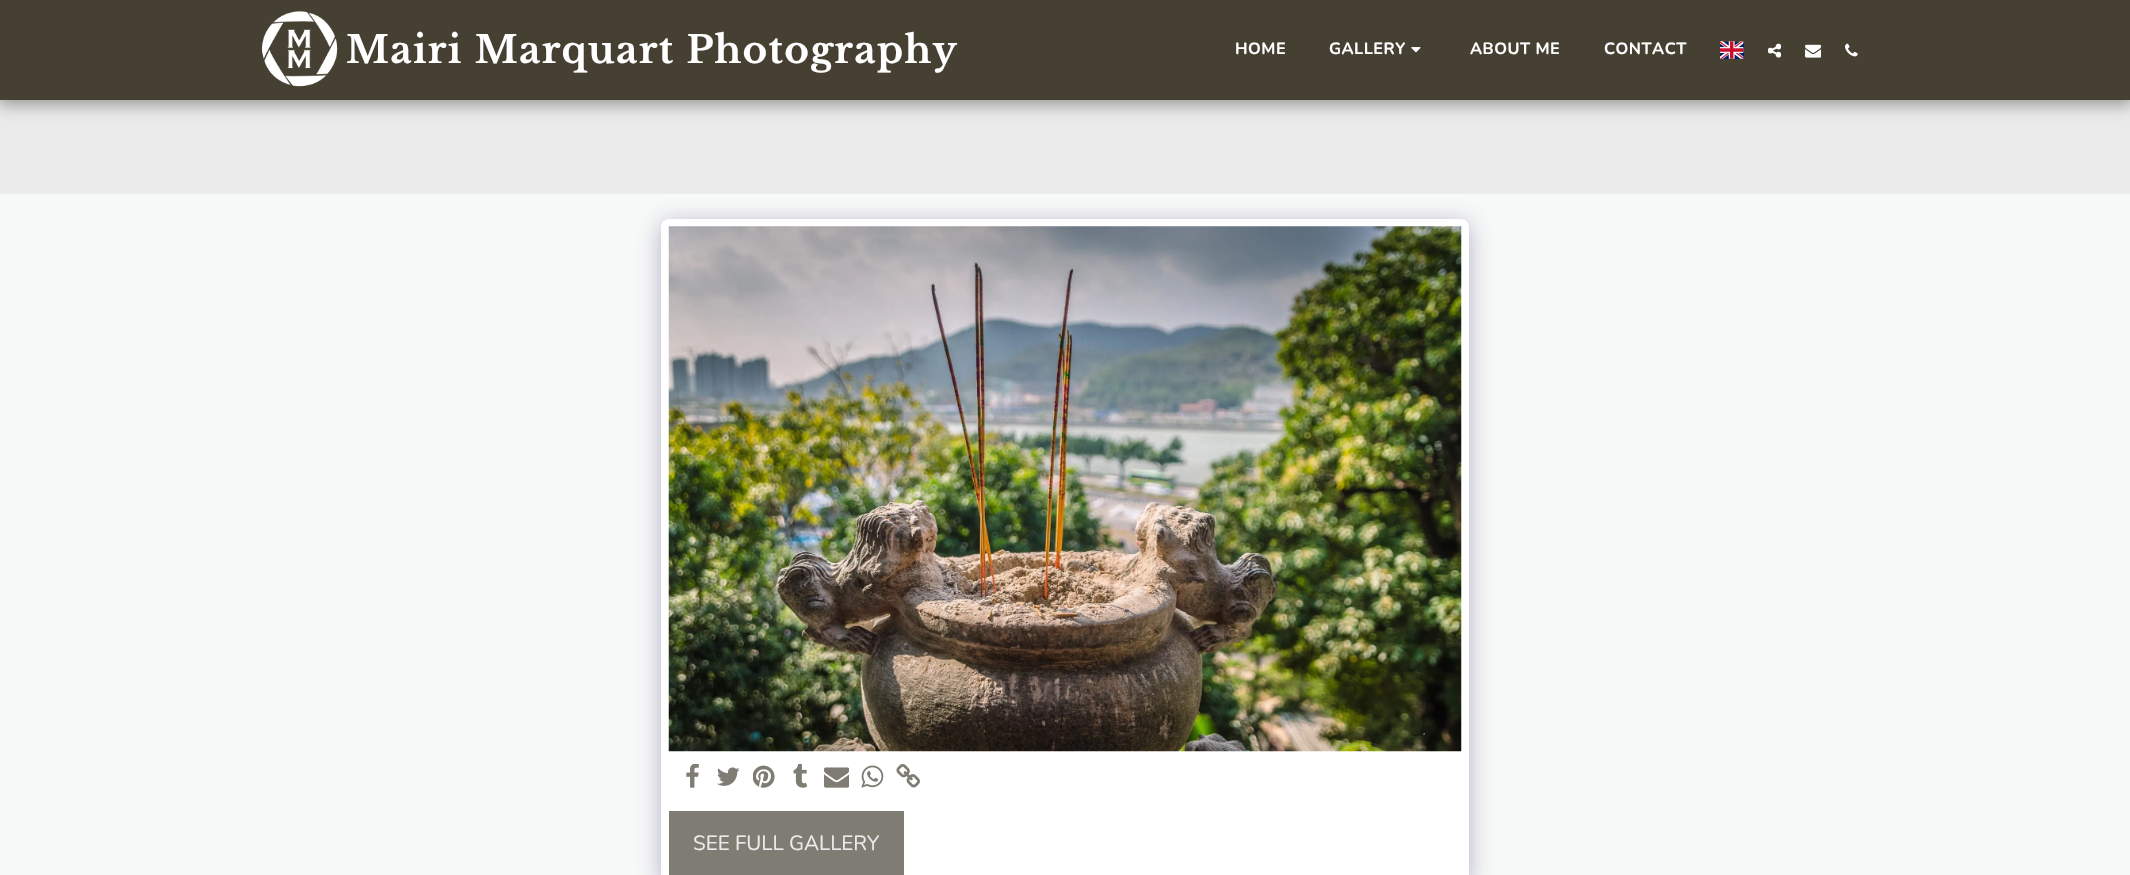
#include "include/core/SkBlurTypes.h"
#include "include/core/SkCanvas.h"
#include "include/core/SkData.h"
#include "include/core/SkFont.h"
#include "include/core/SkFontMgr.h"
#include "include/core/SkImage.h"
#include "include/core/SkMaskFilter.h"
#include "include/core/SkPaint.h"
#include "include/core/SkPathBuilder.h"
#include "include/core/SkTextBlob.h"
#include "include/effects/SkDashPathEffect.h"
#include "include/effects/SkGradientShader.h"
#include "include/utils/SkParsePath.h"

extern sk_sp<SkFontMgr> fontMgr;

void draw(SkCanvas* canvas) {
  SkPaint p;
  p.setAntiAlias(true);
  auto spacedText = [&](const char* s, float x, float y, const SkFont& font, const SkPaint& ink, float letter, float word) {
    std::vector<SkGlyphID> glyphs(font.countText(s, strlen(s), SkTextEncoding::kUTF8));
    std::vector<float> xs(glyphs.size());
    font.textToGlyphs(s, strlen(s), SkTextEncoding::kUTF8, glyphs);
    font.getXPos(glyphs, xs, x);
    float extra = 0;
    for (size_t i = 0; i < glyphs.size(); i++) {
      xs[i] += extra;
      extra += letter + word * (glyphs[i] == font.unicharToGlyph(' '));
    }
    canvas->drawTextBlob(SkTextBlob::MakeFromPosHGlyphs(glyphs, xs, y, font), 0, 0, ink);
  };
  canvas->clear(SkColorSetRGB(247, 249, 248));
  p.setColor(SkColorSetRGB(235, 235, 235));
  canvas->drawRect(SkRect::MakeLTRB(0, 100, 2130, 194), p);
  p.setColor(SkColorSetARGB(89, 0, 0, 0));
  p.setMaskFilter(SkMaskFilter::MakeBlur(kNormal_SkBlurStyle, 7.5f));
  canvas->drawRect(SkRect::MakeLTRB(-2, 0, 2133, 105), p);
  p.setMaskFilter(nullptr);
  p.setColor(SkColorSetRGB(70, 64, 51));
  canvas->drawRect(SkRect::MakeLTRB(0, 0, 2130, 100), p);
  canvas->drawImageRect(SkImages::DeferredFromEncodedData(SkData::MakeFromFileName("images/1.png")), SkRect::MakeLTRB(261, 11, 338, 87), SkSamplingOptions());
  canvas->drawImageRect(SkImages::DeferredFromEncodedData(SkData::MakeFromFileName("images/2.png")), SkRect::MakeLTRB(1411, 47, 1421, 53), SkSamplingOptions());
  canvas->drawImageRect(SkImages::DeferredFromEncodedData(SkData::MakeFromFileName("images/3.png")), SkRect::MakeLTRB(1720, 41, 1744, 59), SkSamplingOptions());
  canvas->drawImageRect(SkImages::DeferredFromEncodedData(SkData::MakeFromFileName("images/4.png")), SkRect::MakeLTRB(1768, 43, 1781, 58), SkSamplingOptions());
  canvas->drawImageRect(SkImages::DeferredFromEncodedData(SkData::MakeFromFileName("images/5.png")), SkRect::MakeLTRB(1805, 44, 1821, 58), SkSamplingOptions());
  canvas->drawImageRect(SkImages::DeferredFromEncodedData(SkData::MakeFromFileName("images/6.png")), SkRect::MakeLTRB(1845, 43, 1858, 57), SkSamplingOptions());
  p.setColor(SkColorSetARGB(102, 77, 63, 122));
  p.setMaskFilter(SkMaskFilter::MakeBlur(kNormal_SkBlurStyle, 12.5f));
  canvas->drawRoundRect(SkRect::MakeLTRB(661, 223, 1469, 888), 8, 8, p);
  p.setMaskFilter(nullptr);
  p.setColor(SK_ColorWHITE);
  canvas->drawRoundRect(SkRect::MakeLTRB(661, 219, 1469, 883), 8, 8, p);
  canvas->drawImageRect(SkImages::DeferredFromEncodedData(SkData::MakeFromFileName("images/7.png")), SkRect::MakeLTRB(668, 226, 1462, 752), SkSamplingOptions());
  canvas->drawImageRect(SkImages::DeferredFromEncodedData(SkData::MakeFromFileName("images/8.png")), SkRect::MakeLTRB(686, 764, 699, 788), SkSamplingOptions());
  canvas->drawImageRect(SkImages::DeferredFromEncodedData(SkData::MakeFromFileName("images/9.png")), SkRect::MakeLTRB(717, 767, 740, 786), SkSamplingOptions());
  canvas->drawImageRect(SkImages::DeferredFromEncodedData(SkData::MakeFromFileName("images/10.png")), SkRect::MakeLTRB(753, 765, 775, 788), SkSamplingOptions());
  canvas->drawImageRect(SkImages::DeferredFromEncodedData(SkData::MakeFromFileName("images/11.png")), SkRect::MakeLTRB(793, 764, 808, 788), SkSamplingOptions());
  canvas->drawImageRect(SkImages::DeferredFromEncodedData(SkData::MakeFromFileName("images/12.png")), SkRect::MakeLTRB(824, 767, 849, 788), SkSamplingOptions());
  canvas->drawImageRect(SkImages::DeferredFromEncodedData(SkData::MakeFromFileName("images/13.png")), SkRect::MakeLTRB(861, 765, 884, 788), SkSamplingOptions());
  canvas->drawImageRect(SkImages::DeferredFromEncodedData(SkData::MakeFromFileName("images/14.png")), SkRect::MakeLTRB(896, 764, 920, 788), SkSamplingOptions());
  p.setColor(SkColorSetRGB(126, 124, 115));
  canvas->drawRect(SkRect::MakeLTRB(669, 811, 904, 875), p);
  SkFont font1(fontMgr->matchFamilyStyle("Libre Baskerville", SkFontStyle::Bold()), 37.5f);
  font1.setSubpixel(true);
  p.setColor(SK_ColorWHITE);
  spacedText("Mairi Marquart Photography", 346, 63, font1, p, 1.25f, 1);
  SkFont font2(fontMgr->matchFamilyStyle("Nunito", SkFontStyle::Bold()), 16.25f);
  font2.setSubpixel(true);
  spacedText("HOME", 1235, 54, font2, p, 0.5f, 0);
  spacedText("GALLERY", 1329, 54, font2, p, 0.5f, 0);
  spacedText("ABOUT ME", 1470, 54, font2, p, 0.5f, 0);
  spacedText("CONTACT", 1604, 54, font2, p, 0.5f, 0);
  SkFont font3(fontMgr->matchFamilyStyle("Nunito", SkFontStyle::Normal()), 20.6f);
  font3.setSubpixel(true);
  p.setColor(SkColorSetRGB(235, 235, 235));
  canvas->drawString("SEE FULL GALLERY", 693, 850, font3, p);
}
